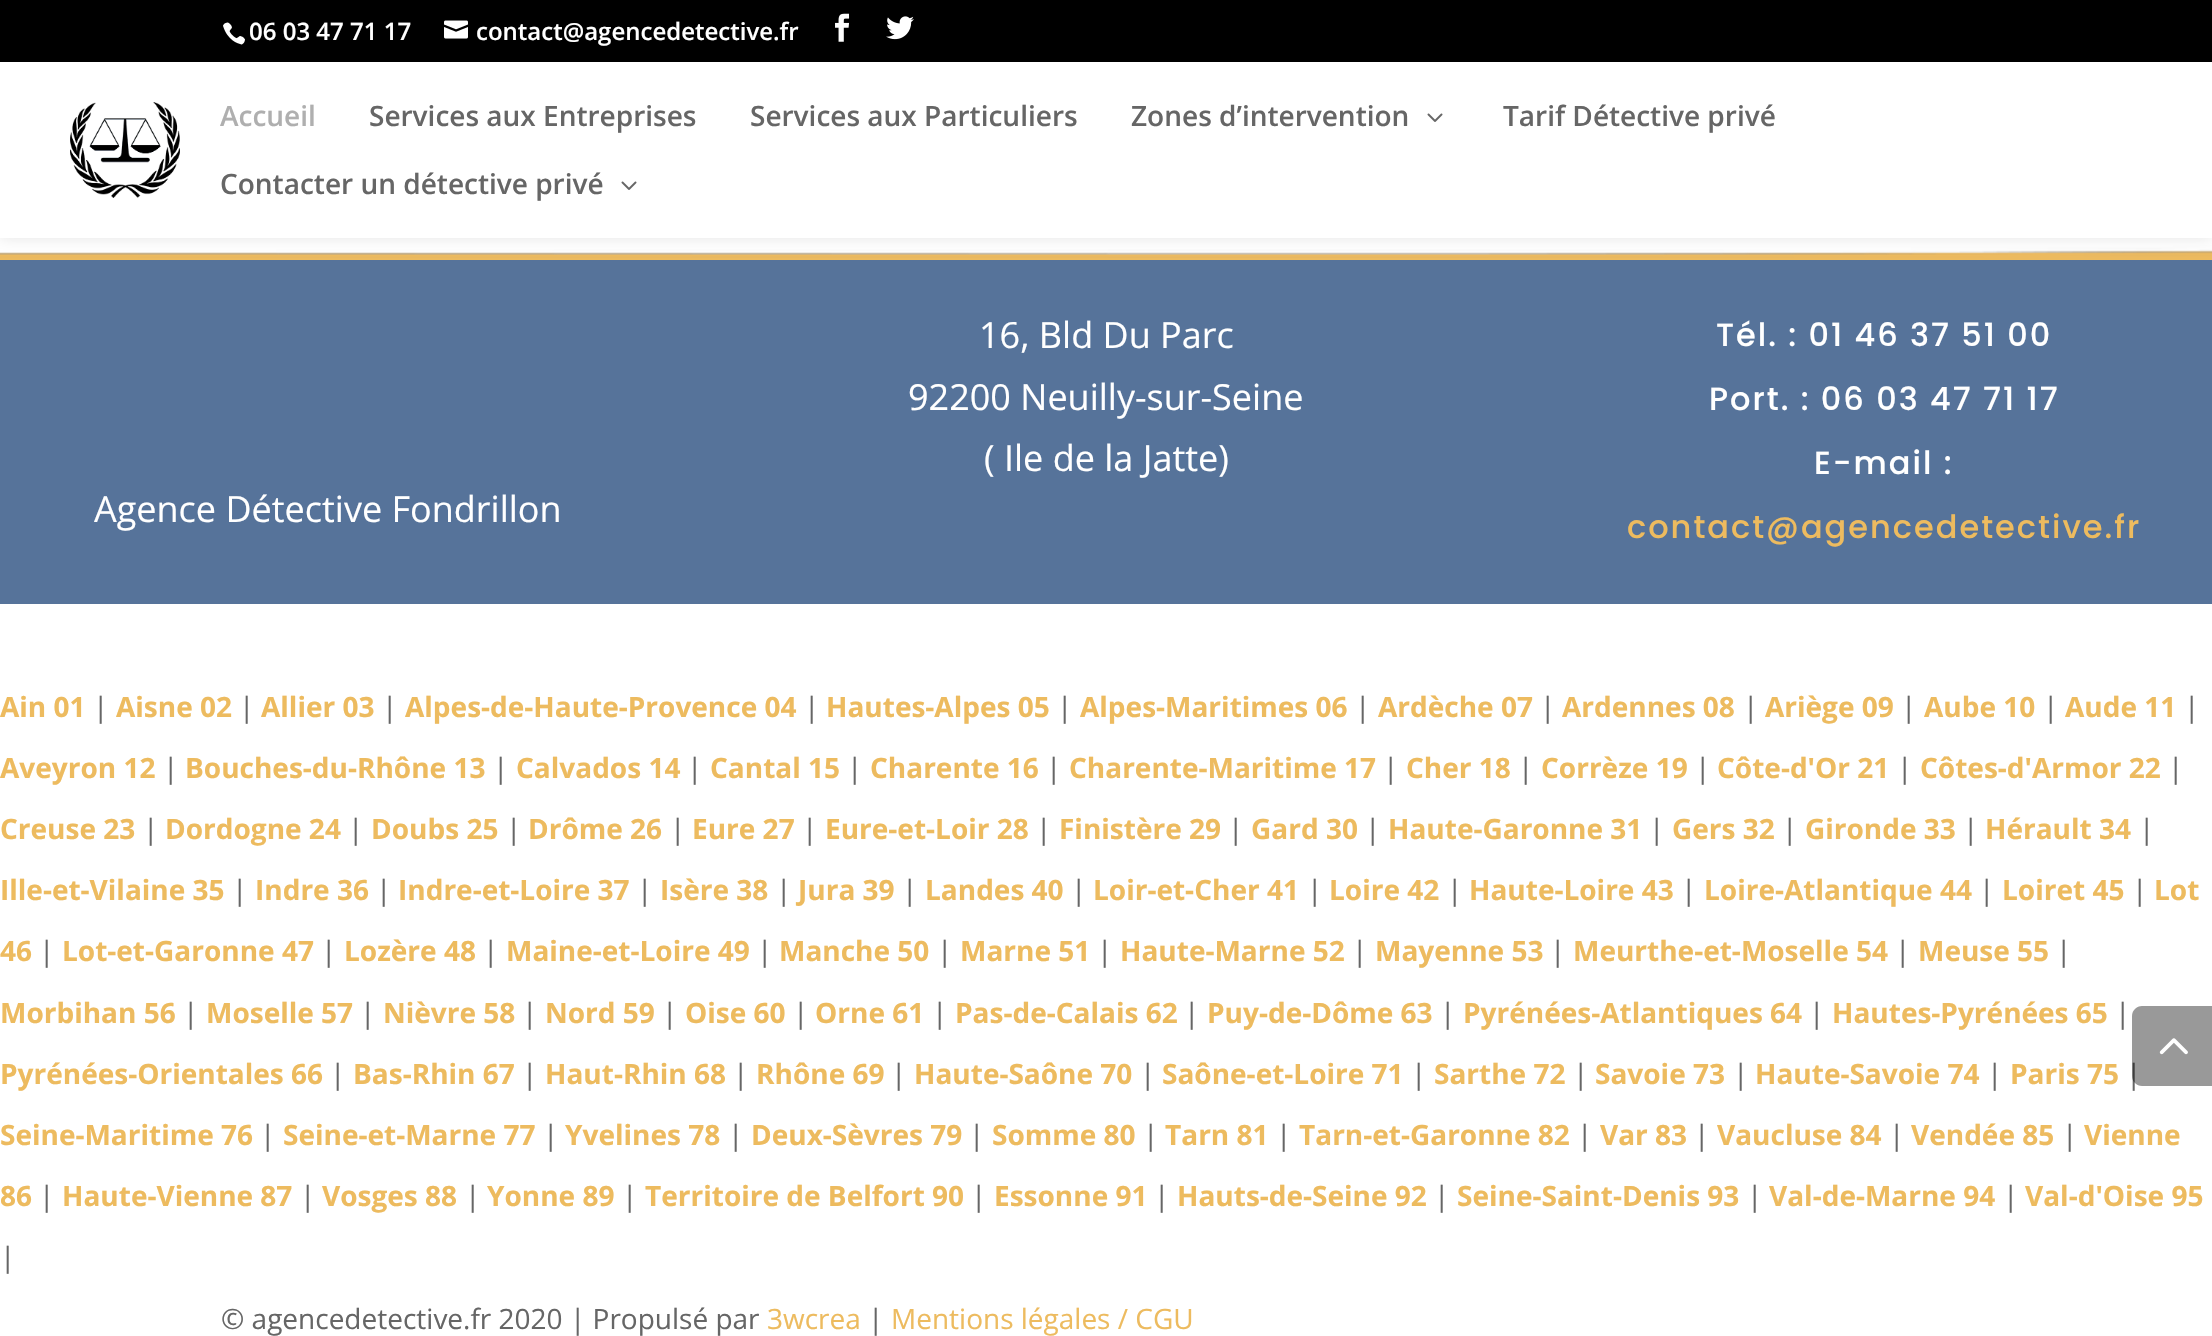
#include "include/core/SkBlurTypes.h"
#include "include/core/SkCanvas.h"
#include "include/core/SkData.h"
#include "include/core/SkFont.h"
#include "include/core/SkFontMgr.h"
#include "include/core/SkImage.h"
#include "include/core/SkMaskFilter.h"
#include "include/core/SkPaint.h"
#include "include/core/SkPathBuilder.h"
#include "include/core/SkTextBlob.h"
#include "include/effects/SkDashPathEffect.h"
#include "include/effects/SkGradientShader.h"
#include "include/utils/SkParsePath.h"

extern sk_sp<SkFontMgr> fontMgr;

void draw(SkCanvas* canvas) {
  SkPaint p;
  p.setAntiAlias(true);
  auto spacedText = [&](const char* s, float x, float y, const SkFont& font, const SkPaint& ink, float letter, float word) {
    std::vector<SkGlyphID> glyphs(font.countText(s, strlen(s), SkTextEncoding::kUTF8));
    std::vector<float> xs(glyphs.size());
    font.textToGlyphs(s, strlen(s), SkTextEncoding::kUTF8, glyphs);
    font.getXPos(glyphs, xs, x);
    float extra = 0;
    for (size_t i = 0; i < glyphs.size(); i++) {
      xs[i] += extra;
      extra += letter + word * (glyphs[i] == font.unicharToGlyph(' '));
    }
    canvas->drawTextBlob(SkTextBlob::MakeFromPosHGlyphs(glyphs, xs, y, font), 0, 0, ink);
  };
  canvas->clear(SK_ColorWHITE);
  p.setColor(SkColorSetRGB(237, 187, 95));
  canvas->drawRect(SkRect::MakeLTRB(0, 250, 2212, 260), p);
  canvas->drawImageRect(SkImages::DeferredFromEncodedData(SkData::MakeFromFileName("images/7.png")), SkRect::MakeLTRB(0, 238, 2212, 258), SkSamplingOptions());
  p.setColor(SkColorSetARGB(26, 0, 0, 0));
  p.setMaskFilter(SkMaskFilter::MakeBlur(kNormal_SkBlurStyle, 7));
  canvas->drawRect(SkRect::MakeLTRB(0, 62, 2212, 238), p);
  p.setMaskFilter(nullptr);
  p.setColor(SK_ColorBLACK);
  canvas->drawRect(SkRect::MakeLTRB(0, 0, 2212, 62), p);
  canvas->drawImageRect(SkImages::DeferredFromEncodedData(SkData::MakeFromFileName("images/1.png")), SkRect::MakeLTRB(223, 22, 245, 45), SkSamplingOptions());
  canvas->drawImageRect(SkImages::DeferredFromEncodedData(SkData::MakeFromFileName("images/2.png")), SkRect::MakeLTRB(444, 20, 468, 39), SkSamplingOptions());
  canvas->drawImageRect(SkImages::DeferredFromEncodedData(SkData::MakeFromFileName("images/3.png")), SkRect::MakeLTRB(835, 13, 850, 42), SkSamplingOptions());
  canvas->drawImageRect(SkImages::DeferredFromEncodedData(SkData::MakeFromFileName("images/4.png")), SkRect::MakeLTRB(886, 16, 914, 40), SkSamplingOptions());
  p.setColor(SK_ColorWHITE);
  canvas->drawRect(SkRect::MakeLTRB(0, 62, 2212, 238), p);
  canvas->drawImageRect(SkImages::DeferredFromEncodedData(SkData::MakeFromFileName("images/5.png")), SkRect::MakeLTRB(70, 102, 180, 198), SkSamplingOptions());
  canvas->drawImageRect(SkImages::DeferredFromEncodedData(SkData::MakeFromFileName("images/6.png")), SkRect::MakeLTRB(1427, 113, 1443, 122), SkSamplingOptions());
  canvas->drawImageRect(SkImages::DeferredFromEncodedData(SkData::MakeFromFileName("images/6.png")), SkRect::MakeLTRB(621, 181, 637, 190), SkSamplingOptions());
  p.setColor(SkColorSetRGB(86, 115, 154));
  canvas->drawRect(SkRect::MakeLTRB(0, 260, 2212, 604), p);
  SkFont font1(fontMgr->matchFamilyStyle("Open Sans", SkFontStyle(600, SkFontStyle::kNormal_Width, SkFontStyle::kUpright_Slant)), 24);
  font1.setSubpixel(true);
  p.setColor(SK_ColorWHITE);
  canvas->drawString("06 03 47 71 17", 249, 40, font1, p);
  canvas->drawString("contact@agencedetective.fr", 476, 40, font1, p);
  SkFont font2(fontMgr->matchFamilyStyle("Open Sans", SkFontStyle(600, SkFontStyle::kNormal_Width, SkFontStyle::kUpright_Slant)), 28);
  font2.setSubpixel(true);
  p.setColor(SkColorSetRGB(175, 175, 175));
  canvas->drawString("Accueil", 220, 126, font2, p);
  p.setColor(SkColorSetRGB(102, 102, 102));
  canvas->drawString("Services aux Entreprises", 369, 126, font2, p);
  canvas->drawString("Services aux Particuliers", 750, 126, font2, p);
  canvas->drawString("Zones d’intervention", 1131, 126, font2, p);
  canvas->drawString("Tarif Détective privé", 1503, 126, font2, p);
  canvas->drawString("Contacter un détective privé", 220, 194, font2, p);
  SkFont font3(fontMgr->matchFamilyStyle("Open Sans", SkFontStyle::Normal()), 36);
  font3.setSubpixel(true);
  p.setColor(SK_ColorWHITE);
  canvas->drawString("Agence Détective Fondrillon", 94, 522, font3, p);
  canvas->drawString("16, Bld Du Parc", 979, 348, font3, p);
  canvas->drawString("92200 Neuilly-sur-Seine", 908, 410, font3, p);
  canvas->drawString("( Ile de la Jatte)", 984, 471, font3, p);
  SkFont font4(fontMgr->matchFamilyStyle("Poppins", SkFontStyle(500, SkFontStyle::kNormal_Width, SkFontStyle::kUpright_Slant)), 32);
  font4.setSubpixel(true);
  spacedText("Tél. : 01 46 37 51 00", 1716, 346, font4, p, 2, 0);
  spacedText("Port. : 06 03 47 71 17", 1709, 410, font4, p, 2, 0);
  spacedText("E-mail :", 1814, 474, font4, p, 2, 0);
  p.setColor(SkColorSetRGB(237, 187, 95));
  spacedText("contact@agencedetective.fr", 1627, 538, font4, p, 2, 0);
  SkFont font5(fontMgr->matchFamilyStyle("Open Sans", SkFontStyle::Bold()), 28);
  font5.setSubpixel(true);
  canvas->drawString("Ain 01", 0, 717, font5, p);
  SkFont font6(fontMgr->matchFamilyStyle("Open Sans", SkFontStyle::Normal()), 28);
  font6.setSubpixel(true);
  p.setColor(SkColorSetRGB(102, 102, 102));
  canvas->drawString("|", 93, 717, font6, p);
  p.setColor(SkColorSetRGB(237, 187, 95));
  canvas->drawString("Aisne 02", 116, 717, font5, p);
  p.setColor(SkColorSetRGB(102, 102, 102));
  canvas->drawString("|", 239, 717, font6, p);
  p.setColor(SkColorSetRGB(237, 187, 95));
  canvas->drawString("Allier 03", 261, 717, font5, p);
  p.setColor(SkColorSetRGB(102, 102, 102));
  canvas->drawString("|", 382, 717, font6, p);
  p.setColor(SkColorSetRGB(237, 187, 95));
  canvas->drawString("Alpes-de-Haute-Provence 04", 405, 717, font5, p);
  p.setColor(SkColorSetRGB(102, 102, 102));
  canvas->drawString("|", 804, 717, font6, p);
  p.setColor(SkColorSetRGB(237, 187, 95));
  canvas->drawString("Hautes-Alpes 05", 826, 717, font5, p);
  p.setColor(SkColorSetRGB(102, 102, 102));
  canvas->drawString("|", 1057, 717, font6, p);
  p.setColor(SkColorSetRGB(237, 187, 95));
  canvas->drawString("Alpes-Maritimes 06", 1080, 717, font5, p);
  p.setColor(SkColorSetRGB(102, 102, 102));
  canvas->drawString("|", 1355, 717, font6, p);
  p.setColor(SkColorSetRGB(237, 187, 95));
  canvas->drawString("Ardèche 07", 1378, 717, font5, p);
  p.setColor(SkColorSetRGB(102, 102, 102));
  canvas->drawString("|", 1540, 717, font6, p);
  p.setColor(SkColorSetRGB(237, 187, 95));
  canvas->drawString("Ardennes 08", 1562, 717, font5, p);
  p.setColor(SkColorSetRGB(102, 102, 102));
  canvas->drawString("|", 1743, 717, font6, p);
  p.setColor(SkColorSetRGB(237, 187, 95));
  canvas->drawString("Ariège 09", 1765, 717, font5, p);
  p.setColor(SkColorSetRGB(102, 102, 102));
  canvas->drawString("|", 1901, 717, font6, p);
  p.setColor(SkColorSetRGB(237, 187, 95));
  canvas->drawString("Aube 10", 1924, 717, font5, p);
  p.setColor(SkColorSetRGB(102, 102, 102));
  canvas->drawString("|", 2043, 717, font6, p);
  p.setColor(SkColorSetRGB(237, 187, 95));
  canvas->drawString("Aude 11", 2065, 717, font5, p);
  p.setColor(SkColorSetRGB(102, 102, 102));
  canvas->drawString("|", 2184, 717, font6, p);
  p.setColor(SkColorSetRGB(237, 187, 95));
  canvas->drawString("Aveyron 12", 0, 778, font5, p);
  p.setColor(SkColorSetRGB(102, 102, 102));
  canvas->drawString("|", 163, 778, font6, p);
  p.setColor(SkColorSetRGB(237, 187, 95));
  canvas->drawString("Bouches-du-Rhône 13", 185, 778, font5, p);
  p.setColor(SkColorSetRGB(102, 102, 102));
  canvas->drawString("|", 493, 778, font6, p);
  p.setColor(SkColorSetRGB(237, 187, 95));
  canvas->drawString("Calvados 14", 516, 778, font5, p);
  p.setColor(SkColorSetRGB(102, 102, 102));
  canvas->drawString("|", 687, 778, font6, p);
  p.setColor(SkColorSetRGB(237, 187, 95));
  canvas->drawString("Cantal 15", 710, 778, font5, p);
  p.setColor(SkColorSetRGB(102, 102, 102));
  canvas->drawString("|", 847, 778, font6, p);
  p.setColor(SkColorSetRGB(237, 187, 95));
  canvas->drawString("Charente 16", 870, 778, font5, p);
  p.setColor(SkColorSetRGB(102, 102, 102));
  canvas->drawString("|", 1046, 778, font6, p);
  p.setColor(SkColorSetRGB(237, 187, 95));
  canvas->drawString("Charente-Maritime 17", 1069, 778, font5, p);
  p.setColor(SkColorSetRGB(102, 102, 102));
  canvas->drawString("|", 1383, 778, font6, p);
  p.setColor(SkColorSetRGB(237, 187, 95));
  canvas->drawString("Cher 18", 1406, 778, font5, p);
  p.setColor(SkColorSetRGB(102, 102, 102));
  canvas->drawString("|", 1518, 778, font6, p);
  p.setColor(SkColorSetRGB(237, 187, 95));
  canvas->drawString("Corrèze 19", 1541, 778, font5, p);
  p.setColor(SkColorSetRGB(102, 102, 102));
  canvas->drawString("|", 1695, 778, font6, p);
  p.setColor(SkColorSetRGB(237, 187, 95));
  canvas->drawString("Côte-d'Or 21", 1717, 778, font5, p);
  p.setColor(SkColorSetRGB(102, 102, 102));
  canvas->drawString("|", 1897, 778, font6, p);
  p.setColor(SkColorSetRGB(237, 187, 95));
  canvas->drawString("Côtes-d'Armor 22", 1920, 778, font5, p);
  p.setColor(SkColorSetRGB(102, 102, 102));
  canvas->drawString("|", 2168, 778, font6, p);
  p.setColor(SkColorSetRGB(237, 187, 95));
  canvas->drawString("Creuse 23", 0, 839, font5, p);
  p.setColor(SkColorSetRGB(102, 102, 102));
  canvas->drawString("|", 143, 839, font6, p);
  p.setColor(SkColorSetRGB(237, 187, 95));
  canvas->drawString("Dordogne 24", 165, 839, font5, p);
  p.setColor(SkColorSetRGB(102, 102, 102));
  canvas->drawString("|", 348, 839, font6, p);
  p.setColor(SkColorSetRGB(237, 187, 95));
  canvas->drawString("Doubs 25", 371, 839, font5, p);
  p.setColor(SkColorSetRGB(102, 102, 102));
  canvas->drawString("|", 506, 839, font6, p);
  p.setColor(SkColorSetRGB(237, 187, 95));
  canvas->drawString("Drôme 26", 528, 839, font5, p);
  p.setColor(SkColorSetRGB(102, 102, 102));
  canvas->drawString("|", 670, 839, font6, p);
  p.setColor(SkColorSetRGB(237, 187, 95));
  canvas->drawString("Eure 27", 692, 839, font5, p);
  p.setColor(SkColorSetRGB(102, 102, 102));
  canvas->drawString("|", 802, 839, font6, p);
  p.setColor(SkColorSetRGB(237, 187, 95));
  canvas->drawString("Eure-et-Loir 28", 825, 839, font5, p);
  p.setColor(SkColorSetRGB(102, 102, 102));
  canvas->drawString("|", 1036, 839, font6, p);
  p.setColor(SkColorSetRGB(237, 187, 95));
  canvas->drawString("Finistère 29", 1059, 839, font5, p);
  p.setColor(SkColorSetRGB(102, 102, 102));
  canvas->drawString("|", 1228, 839, font6, p);
  p.setColor(SkColorSetRGB(237, 187, 95));
  canvas->drawString("Gard 30", 1251, 839, font5, p);
  p.setColor(SkColorSetRGB(102, 102, 102));
  canvas->drawString("|", 1365, 839, font6, p);
  p.setColor(SkColorSetRGB(237, 187, 95));
  canvas->drawString("Haute-Garonne 31", 1388, 839, font5, p);
  p.setColor(SkColorSetRGB(102, 102, 102));
  canvas->drawString("|", 1649, 839, font6, p);
  p.setColor(SkColorSetRGB(237, 187, 95));
  canvas->drawString("Gers 32", 1672, 839, font5, p);
  p.setColor(SkColorSetRGB(102, 102, 102));
  canvas->drawString("|", 1782, 839, font6, p);
  p.setColor(SkColorSetRGB(237, 187, 95));
  canvas->drawString("Gironde 33", 1805, 839, font5, p);
  p.setColor(SkColorSetRGB(102, 102, 102));
  canvas->drawString("|", 1963, 839, font6, p);
  p.setColor(SkColorSetRGB(237, 187, 95));
  canvas->drawString("Hérault 34", 1985, 839, font5, p);
  p.setColor(SkColorSetRGB(102, 102, 102));
  canvas->drawString("|", 2139, 839, font6, p);
  p.setColor(SkColorSetRGB(237, 187, 95));
  canvas->drawString("Ille-et-Vilaine 35", 0, 900, font5, p);
  p.setColor(SkColorSetRGB(102, 102, 102));
  canvas->drawString("|", 232, 900, font6, p);
  p.setColor(SkColorSetRGB(237, 187, 95));
  canvas->drawString("Indre 36", 255, 900, font5, p);
  p.setColor(SkColorSetRGB(102, 102, 102));
  canvas->drawString("|", 376, 900, font6, p);
  p.setColor(SkColorSetRGB(237, 187, 95));
  canvas->drawString("Indre-et-Loire 37", 398, 900, font5, p);
  p.setColor(SkColorSetRGB(102, 102, 102));
  canvas->drawString("|", 637, 900, font6, p);
  p.setColor(SkColorSetRGB(237, 187, 95));
  canvas->drawString("Isère 38", 660, 900, font5, p);
  p.setColor(SkColorSetRGB(102, 102, 102));
  canvas->drawString("|", 776, 900, font6, p);
  p.setColor(SkColorSetRGB(237, 187, 95));
  canvas->drawString("Jura 39", 798, 900, font5, p);
  p.setColor(SkColorSetRGB(102, 102, 102));
  canvas->drawString("|", 902, 900, font6, p);
  p.setColor(SkColorSetRGB(237, 187, 95));
  canvas->drawString("Landes 40", 925, 900, font5, p);
  p.setColor(SkColorSetRGB(102, 102, 102));
  canvas->drawString("|", 1071, 900, font6, p);
  p.setColor(SkColorSetRGB(237, 187, 95));
  canvas->drawString("Loir-et-Cher 41", 1093, 900, font5, p);
  p.setColor(SkColorSetRGB(102, 102, 102));
  canvas->drawString("|", 1307, 900, font6, p);
  p.setColor(SkColorSetRGB(237, 187, 95));
  canvas->drawString("Loire 42", 1329, 900, font5, p);
  p.setColor(SkColorSetRGB(102, 102, 102));
  canvas->drawString("|", 1447, 900, font6, p);
  p.setColor(SkColorSetRGB(237, 187, 95));
  canvas->drawString("Haute-Loire 43", 1469, 900, font5, p);
  p.setColor(SkColorSetRGB(102, 102, 102));
  canvas->drawString("|", 1681, 900, font6, p);
  p.setColor(SkColorSetRGB(237, 187, 95));
  canvas->drawString("Loire-Atlantique 44", 1704, 900, font5, p);
  p.setColor(SkColorSetRGB(102, 102, 102));
  canvas->drawString("|", 1979, 900, font6, p);
  p.setColor(SkColorSetRGB(237, 187, 95));
  canvas->drawString("Loiret 45", 2002, 900, font5, p);
  p.setColor(SkColorSetRGB(102, 102, 102));
  canvas->drawString("|", 2132, 900, font6, p);
  p.setColor(SkColorSetRGB(237, 187, 95));
  canvas->drawString("Lot", 2154, 900, font5, p);
  canvas->drawString("46", 0, 961, font5, p);
  p.setColor(SkColorSetRGB(102, 102, 102));
  canvas->drawString("|", 39, 961, font6, p);
  p.setColor(SkColorSetRGB(237, 187, 95));
  canvas->drawString("Lot-et-Garonne 47", 62, 961, font5, p);
  p.setColor(SkColorSetRGB(102, 102, 102));
  canvas->drawString("|", 321, 961, font6, p);
  p.setColor(SkColorSetRGB(237, 187, 95));
  canvas->drawString("Lozère 48", 344, 961, font5, p);
  p.setColor(SkColorSetRGB(102, 102, 102));
  canvas->drawString("|", 483, 961, font6, p);
  p.setColor(SkColorSetRGB(237, 187, 95));
  canvas->drawString("Maine-et-Loire 49", 506, 961, font5, p);
  p.setColor(SkColorSetRGB(102, 102, 102));
  canvas->drawString("|", 757, 961, font6, p);
  p.setColor(SkColorSetRGB(237, 187, 95));
  canvas->drawString("Manche 50", 779, 961, font5, p);
  p.setColor(SkColorSetRGB(102, 102, 102));
  canvas->drawString("|", 937, 961, font6, p);
  p.setColor(SkColorSetRGB(237, 187, 95));
  canvas->drawString("Marne 51", 960, 961, font5, p);
  p.setColor(SkColorSetRGB(102, 102, 102));
  canvas->drawString("|", 1097, 961, font6, p);
  p.setColor(SkColorSetRGB(237, 187, 95));
  canvas->drawString("Haute-Marne 52", 1120, 961, font5, p);
  p.setColor(SkColorSetRGB(102, 102, 102));
  canvas->drawString("|", 1352, 961, font6, p);
  p.setColor(SkColorSetRGB(237, 187, 95));
  canvas->drawString("Mayenne 53", 1375, 961, font5, p);
  p.setColor(SkColorSetRGB(102, 102, 102));
  canvas->drawString("|", 1550, 961, font6, p);
  p.setColor(SkColorSetRGB(237, 187, 95));
  canvas->drawString("Meurthe-et-Moselle 54", 1573, 961, font5, p);
  p.setColor(SkColorSetRGB(102, 102, 102));
  canvas->drawString("|", 1895, 961, font6, p);
  p.setColor(SkColorSetRGB(237, 187, 95));
  canvas->drawString("Meuse 55", 1918, 961, font5, p);
  p.setColor(SkColorSetRGB(102, 102, 102));
  canvas->drawString("|", 2056, 961, font6, p);
  p.setColor(SkColorSetRGB(237, 187, 95));
  canvas->drawString("Morbihan 56", 0, 1023, font5, p);
  p.setColor(SkColorSetRGB(102, 102, 102));
  canvas->drawString("|", 183, 1023, font6, p);
  p.setColor(SkColorSetRGB(237, 187, 95));
  canvas->drawString("Moselle 57", 206, 1023, font5, p);
  p.setColor(SkColorSetRGB(102, 102, 102));
  canvas->drawString("|", 360, 1023, font6, p);
  p.setColor(SkColorSetRGB(237, 187, 95));
  canvas->drawString("Nièvre 58", 383, 1023, font5, p);
  p.setColor(SkColorSetRGB(102, 102, 102));
  canvas->drawString("|", 522, 1023, font6, p);
  p.setColor(SkColorSetRGB(237, 187, 95));
  canvas->drawString("Nord 59", 545, 1023, font5, p);
  p.setColor(SkColorSetRGB(102, 102, 102));
  canvas->drawString("|", 662, 1023, font6, p);
  p.setColor(SkColorSetRGB(237, 187, 95));
  canvas->drawString("Oise 60", 685, 1023, font5, p);
  p.setColor(SkColorSetRGB(102, 102, 102));
  canvas->drawString("|", 793, 1023, font6, p);
  p.setColor(SkColorSetRGB(237, 187, 95));
  canvas->drawString("Orne 61", 815, 1023, font5, p);
  p.setColor(SkColorSetRGB(102, 102, 102));
  canvas->drawString("|", 932, 1023, font6, p);
  p.setColor(SkColorSetRGB(237, 187, 95));
  canvas->drawString("Pas-de-Calais 62", 955, 1023, font5, p);
  p.setColor(SkColorSetRGB(102, 102, 102));
  canvas->drawString("|", 1184, 1023, font6, p);
  p.setColor(SkColorSetRGB(237, 187, 95));
  canvas->drawString("Puy-de-Dôme 63", 1207, 1023, font5, p);
  p.setColor(SkColorSetRGB(102, 102, 102));
  canvas->drawString("|", 1440, 1023, font6, p);
  p.setColor(SkColorSetRGB(237, 187, 95));
  canvas->drawString("Pyrénées-Atlantiques 64", 1463, 1023, font5, p);
  p.setColor(SkColorSetRGB(102, 102, 102));
  canvas->drawString("|", 1809, 1023, font6, p);
  p.setColor(SkColorSetRGB(237, 187, 95));
  canvas->drawString("Hautes-Pyrénées 65", 1832, 1023, font5, p);
  p.setColor(SkColorSetRGB(102, 102, 102));
  canvas->drawString("|", 2115, 1023, font6, p);
  p.setColor(SkColorSetRGB(237, 187, 95));
  canvas->drawString("Pyrénées-Orientales 66", 0, 1084, font5, p);
  p.setColor(SkColorSetRGB(102, 102, 102));
  canvas->drawString("|", 330, 1084, font6, p);
  p.setColor(SkColorSetRGB(237, 187, 95));
  canvas->drawString("Bas-Rhin 67", 353, 1084, font5, p);
  p.setColor(SkColorSetRGB(102, 102, 102));
  canvas->drawString("|", 522, 1084, font6, p);
  p.setColor(SkColorSetRGB(237, 187, 95));
  canvas->drawString("Haut-Rhin 68", 545, 1084, font5, p);
  p.setColor(SkColorSetRGB(102, 102, 102));
  canvas->drawString("|", 733, 1084, font6, p);
  p.setColor(SkColorSetRGB(237, 187, 95));
  canvas->drawString("Rhône 69", 756, 1084, font5, p);
  p.setColor(SkColorSetRGB(102, 102, 102));
  canvas->drawString("|", 891, 1084, font6, p);
  p.setColor(SkColorSetRGB(237, 187, 95));
  canvas->drawString("Haute-Saône 70", 914, 1084, font5, p);
  p.setColor(SkColorSetRGB(102, 102, 102));
  canvas->drawString("|", 1140, 1084, font6, p);
  p.setColor(SkColorSetRGB(237, 187, 95));
  canvas->drawString("Saône-et-Loire 71", 1162, 1084, font5, p);
  p.setColor(SkColorSetRGB(102, 102, 102));
  canvas->drawString("|", 1411, 1084, font6, p);
  p.setColor(SkColorSetRGB(237, 187, 95));
  canvas->drawString("Sarthe 72", 1434, 1084, font5, p);
  p.setColor(SkColorSetRGB(102, 102, 102));
  canvas->drawString("|", 1573, 1084, font6, p);
  p.setColor(SkColorSetRGB(237, 187, 95));
  canvas->drawString("Savoie 73", 1595, 1084, font5, p);
  p.setColor(SkColorSetRGB(102, 102, 102));
  canvas->drawString("|", 1733, 1084, font6, p);
  p.setColor(SkColorSetRGB(237, 187, 95));
  canvas->drawString("Haute-Savoie 74", 1755, 1084, font5, p);
  p.setColor(SkColorSetRGB(102, 102, 102));
  canvas->drawString("|", 1987, 1084, font6, p);
  p.setColor(SkColorSetRGB(237, 187, 95));
  canvas->drawString("Paris 75", 2010, 1084, font5, p);
  p.setColor(SkColorSetRGB(102, 102, 102));
  canvas->drawString("|", 2126, 1084, font6, p);
  p.setColor(SkColorSetRGB(237, 187, 95));
  canvas->drawString("Seine-Maritime 76", 0, 1145, font5, p);
  p.setColor(SkColorSetRGB(102, 102, 102));
  canvas->drawString("|", 260, 1145, font6, p);
  p.setColor(SkColorSetRGB(237, 187, 95));
  canvas->drawString("Seine-et-Marne 77", 283, 1145, font5, p);
  p.setColor(SkColorSetRGB(102, 102, 102));
  canvas->drawString("|", 543, 1145, font6, p);
  p.setColor(SkColorSetRGB(237, 187, 95));
  canvas->drawString("Yvelines 78", 565, 1145, font5, p);
  p.setColor(SkColorSetRGB(102, 102, 102));
  canvas->drawString("|", 728, 1145, font6, p);
  p.setColor(SkColorSetRGB(237, 187, 95));
  canvas->drawString("Deux-Sèvres 79", 751, 1145, font5, p);
  p.setColor(SkColorSetRGB(102, 102, 102));
  canvas->drawString("|", 969, 1145, font6, p);
  p.setColor(SkColorSetRGB(237, 187, 95));
  canvas->drawString("Somme 80", 992, 1145, font5, p);
  p.setColor(SkColorSetRGB(102, 102, 102));
  canvas->drawString("|", 1143, 1145, font6, p);
  p.setColor(SkColorSetRGB(237, 187, 95));
  canvas->drawString("Tarn 81", 1165, 1145, font5, p);
  p.setColor(SkColorSetRGB(102, 102, 102));
  canvas->drawString("|", 1276, 1145, font6, p);
  p.setColor(SkColorSetRGB(237, 187, 95));
  canvas->drawString("Tarn-et-Garonne 82", 1299, 1145, font5, p);
  p.setColor(SkColorSetRGB(102, 102, 102));
  canvas->drawString("|", 1577, 1145, font6, p);
  p.setColor(SkColorSetRGB(237, 187, 95));
  canvas->drawString("Var 83", 1600, 1145, font5, p);
  p.setColor(SkColorSetRGB(102, 102, 102));
  canvas->drawString("|", 1694, 1145, font6, p);
  p.setColor(SkColorSetRGB(237, 187, 95));
  canvas->drawString("Vaucluse 84", 1717, 1145, font5, p);
  p.setColor(SkColorSetRGB(102, 102, 102));
  canvas->drawString("|", 1889, 1145, font6, p);
  p.setColor(SkColorSetRGB(237, 187, 95));
  canvas->drawString("Vendée 85", 1911, 1145, font5, p);
  p.setColor(SkColorSetRGB(102, 102, 102));
  canvas->drawString("|", 2062, 1145, font6, p);
  p.setColor(SkColorSetRGB(237, 187, 95));
  canvas->drawString("Vienne", 2084, 1145, font5, p);
  canvas->drawString("86", 0, 1206, font5, p);
  p.setColor(SkColorSetRGB(102, 102, 102));
  canvas->drawString("|", 39, 1206, font6, p);
  p.setColor(SkColorSetRGB(237, 187, 95));
  canvas->drawString("Haute-Vienne 87", 62, 1206, font5, p);
  p.setColor(SkColorSetRGB(102, 102, 102));
  canvas->drawString("|", 300, 1206, font6, p);
  p.setColor(SkColorSetRGB(237, 187, 95));
  canvas->drawString("Vosges 88", 322, 1206, font5, p);
  p.setColor(SkColorSetRGB(102, 102, 102));
  canvas->drawString("|", 465, 1206, font6, p);
  p.setColor(SkColorSetRGB(237, 187, 95));
  canvas->drawString("Yonne 89", 487, 1206, font5, p);
  p.setColor(SkColorSetRGB(102, 102, 102));
  canvas->drawString("|", 622, 1206, font6, p);
  p.setColor(SkColorSetRGB(237, 187, 95));
  canvas->drawString("Territoire de Belfort 90", 645, 1206, font5, p);
  p.setColor(SkColorSetRGB(102, 102, 102));
  canvas->drawString("|", 971, 1206, font6, p);
  p.setColor(SkColorSetRGB(237, 187, 95));
  canvas->drawString("Essonne 91", 994, 1206, font5, p);
  p.setColor(SkColorSetRGB(102, 102, 102));
  canvas->drawString("|", 1154, 1206, font6, p);
  p.setColor(SkColorSetRGB(237, 187, 95));
  canvas->drawString("Hauts-de-Seine 92", 1177, 1206, font5, p);
  p.setColor(SkColorSetRGB(102, 102, 102));
  canvas->drawString("|", 1434, 1206, font6, p);
  p.setColor(SkColorSetRGB(237, 187, 95));
  canvas->drawString("Seine-Saint-Denis 93", 1457, 1206, font5, p);
  p.setColor(SkColorSetRGB(102, 102, 102));
  canvas->drawString("|", 1747, 1206, font6, p);
  p.setColor(SkColorSetRGB(237, 187, 95));
  canvas->drawString("Val-de-Marne 94", 1769, 1206, font5, p);
  p.setColor(SkColorSetRGB(102, 102, 102));
  canvas->drawString("|", 2003, 1206, font6, p);
  p.setColor(SkColorSetRGB(237, 187, 95));
  canvas->drawString("Val-d'Oise 95", 2025, 1206, font5, p);
  p.setColor(SkColorSetRGB(102, 102, 102));
  canvas->drawString("|", 0, 1267, font6, p);
  canvas->drawString("© agencedetective.fr 2020 | Propulsé par", 221, 1329, font6, p);
  p.setColor(SkColorSetRGB(237, 187, 95));
  canvas->drawString("3wcrea", 767, 1329, font6, p);
  p.setColor(SkColorSetRGB(102, 102, 102));
  canvas->drawString("|", 868, 1329, font6, p);
  p.setColor(SkColorSetRGB(237, 187, 95));
  canvas->drawString("Mentions légales / CGU", 891, 1329, font6, p);
  p.setColor(SkColorSetARGB(102, 0, 0, 0));
  canvas->drawPath(SkPathBuilder().moveTo(2142, 1006).lineTo(2212, 1006).lineTo(2212, 1086).lineTo(2142, 1086).cubicTo(2136.5f, 1086, 2132, 1081.5f, 2132, 1076).lineTo(2132, 1016).cubicTo(2132, 1010.5f, 2136.5f, 1006, 2142, 1006).close().detach(), p);
  canvas->drawImageRect(SkImages::DeferredFromEncodedData(SkData::MakeFromFileName("images/8.png")), SkRect::MakeLTRB(2159, 1038, 2188, 1055), SkSamplingOptions());
}
